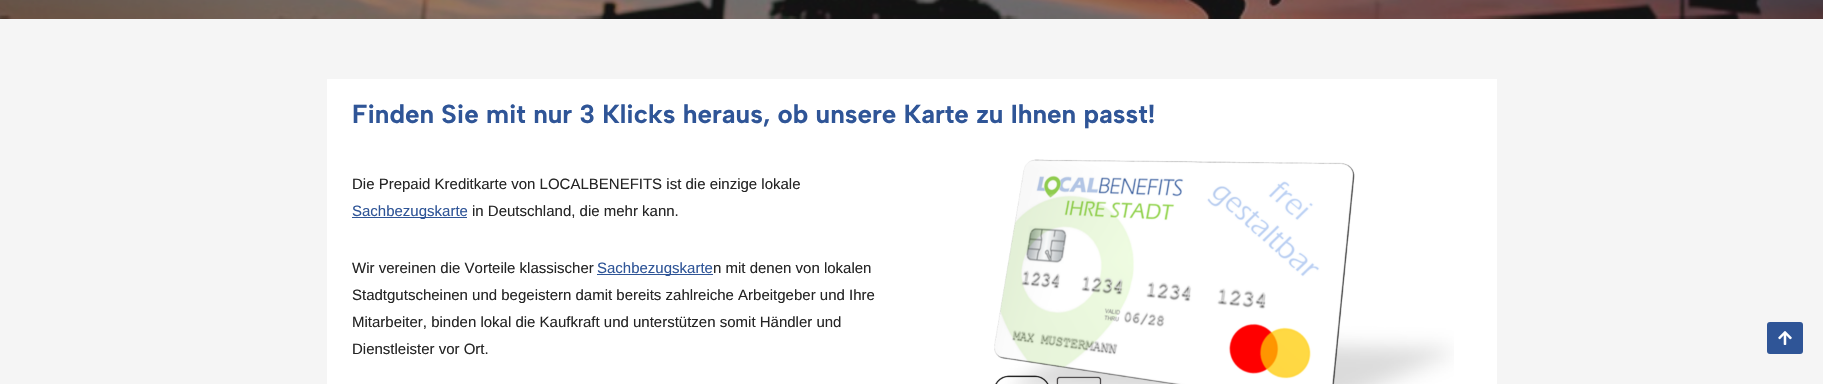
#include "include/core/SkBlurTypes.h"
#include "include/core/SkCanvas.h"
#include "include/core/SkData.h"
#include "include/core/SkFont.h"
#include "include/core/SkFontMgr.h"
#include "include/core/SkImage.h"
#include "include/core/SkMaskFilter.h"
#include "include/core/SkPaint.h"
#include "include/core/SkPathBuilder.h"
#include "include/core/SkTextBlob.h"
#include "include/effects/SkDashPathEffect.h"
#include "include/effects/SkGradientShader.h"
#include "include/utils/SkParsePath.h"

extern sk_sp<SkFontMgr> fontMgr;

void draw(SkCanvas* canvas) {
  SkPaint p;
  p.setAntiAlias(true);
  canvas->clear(SkColorSetRGB(245, 245, 245));
  canvas->drawImageRect(SkImages::DeferredFromEncodedData(SkData::MakeFromFileName("images/1.png")), SkRect::MakeLTRB(0, 0, 1823, 19), SkSamplingOptions());
  p.setColor(SK_ColorWHITE);
  canvas->drawRect(SkRect::MakeLTRB(327, 79, 1497, 384), p);
  p.setColor(SkColorSetRGB(47, 85, 151));
  canvas->drawRect(SkRect::MakeLTRB(352, 217, 467, 218), p);
  canvas->drawRect(SkRect::MakeLTRB(597, 274, 713, 275), p);
  canvas->drawImageRect(SkImages::DeferredFromEncodedData(SkData::MakeFromFileName("images/2.png")), SkRect::MakeLTRB(994, 159, 1454, 384), SkSamplingOptions());
  canvas->drawRoundRect(SkRect::MakeLTRB(1767, 322, 1803, 354), 3, 3, p);
  canvas->drawImageRect(SkImages::DeferredFromEncodedData(SkData::MakeFromFileName("images/3.png")), SkRect::MakeLTRB(1778, 331, 1792, 345), SkSamplingOptions());
  SkFont font1(fontMgr->matchFamilyStyle("Albert Sans", SkFontStyle::Bold()), 26);
  font1.setSubpixel(true);
  canvas->drawString("Finden Sie mit nur 3 Klicks heraus, ob unsere Karte zu Ihnen passt!", 352, 123, font1, p);
  SkFont font2(fontMgr->matchFamilyStyle("Liberation Sans", SkFontStyle::Normal()), 15);
  font2.setSubpixel(true);
  p.setColor(SkColorSetRGB(37, 37, 37));
  canvas->drawString("Die Prepaid Kreditkarte von LOCALBENEFITS ist die einzige lokale", 352, 189, font2, p);
  p.setColor(SkColorSetRGB(47, 85, 151));
  canvas->drawString("Sachbezugskarte", 352, 216, font2, p);
  p.setColor(SkColorSetRGB(37, 37, 37));
  canvas->drawString("in Deutschland, die mehr kann.", 472, 216, font2, p);
  canvas->drawString("Wir vereinen die Vorteile klassischer", 352, 273, font2, p);
  p.setColor(SkColorSetRGB(47, 85, 151));
  canvas->drawString("Sachbezugskarte", 597, 273, font2, p);
  p.setColor(SkColorSetRGB(37, 37, 37));
  canvas->drawString("n mit denen von lokalen", 713, 273, font2, p);
  canvas->drawString("Stadtgutscheinen und begeistern damit bereits zahlreiche Arbeitgeber und Ihre", 352, 300, font2, p);
  canvas->drawString("Mitarbeiter, binden lokal die Kaufkraft und unterstützen somit Händler und", 352, 327, font2, p);
  canvas->drawString("Dienstleister vor Ort.", 352, 354, font2, p);
}
